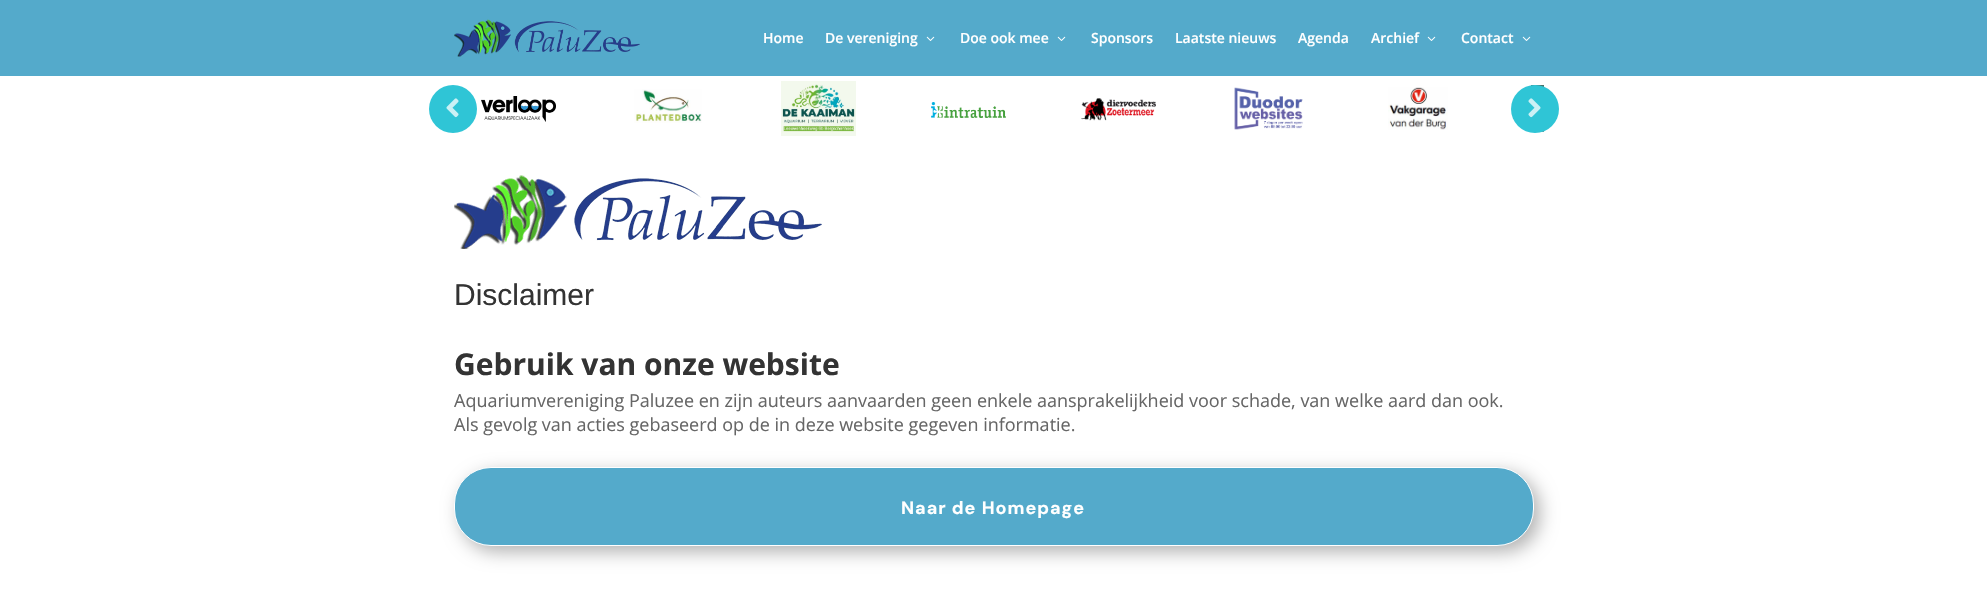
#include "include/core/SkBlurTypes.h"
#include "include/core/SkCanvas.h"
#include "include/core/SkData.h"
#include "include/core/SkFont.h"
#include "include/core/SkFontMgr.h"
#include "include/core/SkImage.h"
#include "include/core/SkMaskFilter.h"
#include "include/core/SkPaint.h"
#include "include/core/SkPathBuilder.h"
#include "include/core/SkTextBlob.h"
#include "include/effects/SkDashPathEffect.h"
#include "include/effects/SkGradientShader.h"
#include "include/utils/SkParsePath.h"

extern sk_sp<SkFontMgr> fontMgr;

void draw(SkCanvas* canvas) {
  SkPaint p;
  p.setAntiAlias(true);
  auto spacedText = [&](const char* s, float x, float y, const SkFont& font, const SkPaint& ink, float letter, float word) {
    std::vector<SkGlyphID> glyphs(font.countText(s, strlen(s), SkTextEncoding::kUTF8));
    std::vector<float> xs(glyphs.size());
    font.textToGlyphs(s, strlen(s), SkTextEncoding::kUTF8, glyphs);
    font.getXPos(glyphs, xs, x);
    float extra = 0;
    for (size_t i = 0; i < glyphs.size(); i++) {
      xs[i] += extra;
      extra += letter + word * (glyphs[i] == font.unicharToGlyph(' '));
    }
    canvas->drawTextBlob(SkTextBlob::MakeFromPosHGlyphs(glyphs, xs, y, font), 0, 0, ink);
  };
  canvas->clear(SK_ColorWHITE);
  p.setColor(SkColorSetRGB(84, 170, 203));
  canvas->drawRect(SkRect::MakeLTRB(0, 0, 1987, 76), p);
  canvas->drawImageRect(SkImages::DeferredFromEncodedData(SkData::MakeFromFileName("images/1.png")), SkRect::MakeLTRB(454, 19, 640, 57), SkSamplingOptions());
  canvas->drawImageRect(SkImages::DeferredFromEncodedData(SkData::MakeFromFileName("images/2.png")), SkRect::MakeLTRB(926, 36, 935, 41), SkSamplingOptions());
  canvas->drawImageRect(SkImages::DeferredFromEncodedData(SkData::MakeFromFileName("images/2.png")), SkRect::MakeLTRB(1057, 36, 1066, 41), SkSamplingOptions());
  canvas->drawImageRect(SkImages::DeferredFromEncodedData(SkData::MakeFromFileName("images/2.png")), SkRect::MakeLTRB(1427, 36, 1436, 41), SkSamplingOptions());
  canvas->drawImageRect(SkImages::DeferredFromEncodedData(SkData::MakeFromFileName("images/2.png")), SkRect::MakeLTRB(1522, 36, 1531, 41), SkSamplingOptions());
  p.setColor(SkColorSetRGB(47, 197, 214));
  canvas->drawCircle(453, 109, 24, p);
  canvas->drawImageRect(SkImages::DeferredFromEncodedData(SkData::MakeFromFileName("images/3.png")), SkRect::MakeLTRB(446, 98, 459, 118), SkSamplingOptions());
  canvas->drawImageRect(SkImages::DeferredFromEncodedData(SkData::MakeFromFileName("images/4.png")), SkRect::MakeLTRB(481, 96, 556, 122), SkSamplingOptions());
  canvas->drawImageRect(SkImages::DeferredFromEncodedData(SkData::MakeFromFileName("images/5.png")), SkRect::MakeLTRB(634, 89, 702, 123), SkSamplingOptions());
  canvas->drawImageRect(SkImages::DeferredFromEncodedData(SkData::MakeFromFileName("images/6.png")), SkRect::MakeLTRB(781, 81, 856, 136), SkSamplingOptions());
  canvas->drawImageRect(SkImages::DeferredFromEncodedData(SkData::MakeFromFileName("images/7.png")), SkRect::MakeLTRB(931, 102, 1006, 118), SkSamplingOptions());
  canvas->drawImageRect(SkImages::DeferredFromEncodedData(SkData::MakeFromFileName("images/8.png")), SkRect::MakeLTRB(1081, 98, 1156, 121), SkSamplingOptions());
  canvas->drawImageRect(SkImages::DeferredFromEncodedData(SkData::MakeFromFileName("images/9.png")), SkRect::MakeLTRB(1234, 87, 1303, 130), SkSamplingOptions());
  canvas->drawImageRect(SkImages::DeferredFromEncodedData(SkData::MakeFromFileName("images/10.png")), SkRect::MakeLTRB(1388, 87, 1448, 130), SkSamplingOptions());
  canvas->drawImageRect(SkImages::DeferredFromEncodedData(SkData::MakeFromFileName("images/11.png")), SkRect::MakeLTRB(1531, 85, 1544, 132), SkSamplingOptions());
  canvas->drawCircle(1535, 109, 24, p);
  canvas->drawImageRect(SkImages::DeferredFromEncodedData(SkData::MakeFromFileName("images/12.png")), SkRect::MakeLTRB(1528, 98, 1541, 118), SkSamplingOptions());
  canvas->drawImageRect(SkImages::DeferredFromEncodedData(SkData::MakeFromFileName("images/13.png")), SkRect::MakeLTRB(454, 175, 822, 249), SkSamplingOptions());
  p.setColor(SkColorSetARGB(77, 0, 0, 0));
  p.setMaskFilter(SkMaskFilter::MakeBlur(kNormal_SkBlurStyle, 9));
  canvas->drawRoundRect(SkRect::MakeLTRB(460, 473, 1540, 552), 37, 37, p);
  p.setMaskFilter(nullptr);
  p.setColor(SkColorSetRGB(84, 170, 203));
  canvas->drawRoundRect(SkRect::MakeLTRB(454.5f, 467.5f, 1533.5f, 545.5f), 36.5f, 36.5f, p);
  p.setStyle(SkPaint::kStroke_Style);
  p.setStrokeWidth(1);
  p.setColor(SK_ColorWHITE);
  canvas->drawRoundRect(SkRect::MakeLTRB(454.5f, 467.5f, 1533.5f, 545.5f), 36.5f, 36.5f, p);
  SkFont font1(fontMgr->matchFamilyStyle("Open Sans", SkFontStyle(600, SkFontStyle::kNormal_Width, SkFontStyle::kUpright_Slant)), 14);
  font1.setSubpixel(true);
  p.setStyle(SkPaint::kFill_Style);
  canvas->drawString("Home", 763, 43, font1, p);
  canvas->drawString("De vereniging", 825, 43, font1, p);
  canvas->drawString("Doe ook mee", 960, 43, font1, p);
  canvas->drawString("Sponsors", 1091, 43, font1, p);
  canvas->drawString("Laatste nieuws", 1175, 43, font1, p);
  canvas->drawString("Agenda", 1298, 43, font1, p);
  canvas->drawString("Archief", 1371, 43, font1, p);
  canvas->drawString("Contact", 1461, 43, font1, p);
  SkFont font2(fontMgr->matchFamilyStyle("Liberation Sans", SkFontStyle::Normal()), 30);
  font2.setSubpixel(true);
  p.setColor(SkColorSetRGB(51, 51, 51));
  canvas->drawString("Disclaimer", 454, 305, font2, p);
  SkFont font3(fontMgr->matchFamilyStyle("Open Sans", SkFontStyle::Bold()), 30);
  font3.setSubpixel(true);
  canvas->drawString("Gebruik van onze website", 454, 375, font3, p);
  SkFont font4(fontMgr->matchFamilyStyle("Open Sans", SkFontStyle::Normal()), 18);
  font4.setSubpixel(true);
  p.setColor(SkColorSetRGB(102, 102, 102));
  canvas->drawString("Aquariumvereniging Paluzee en zijn auteurs aanvaarden geen enkele aansprakelijkheid voor schade, van welke aard dan ook.", 454, 407, font4, p);
  canvas->drawString("Als gevolg van acties gebaseerd op de in deze website gegeven informatie.", 454, 431, font4, p);
  SkFont font5(fontMgr->matchFamilyStyle("DM Sans", SkFontStyle::Bold()), 18);
  font5.setSubpixel(true);
  p.setColor(SK_ColorWHITE);
  spacedText("Naar de Homepage", 901, 514, font5, p, 1, 0);
}
